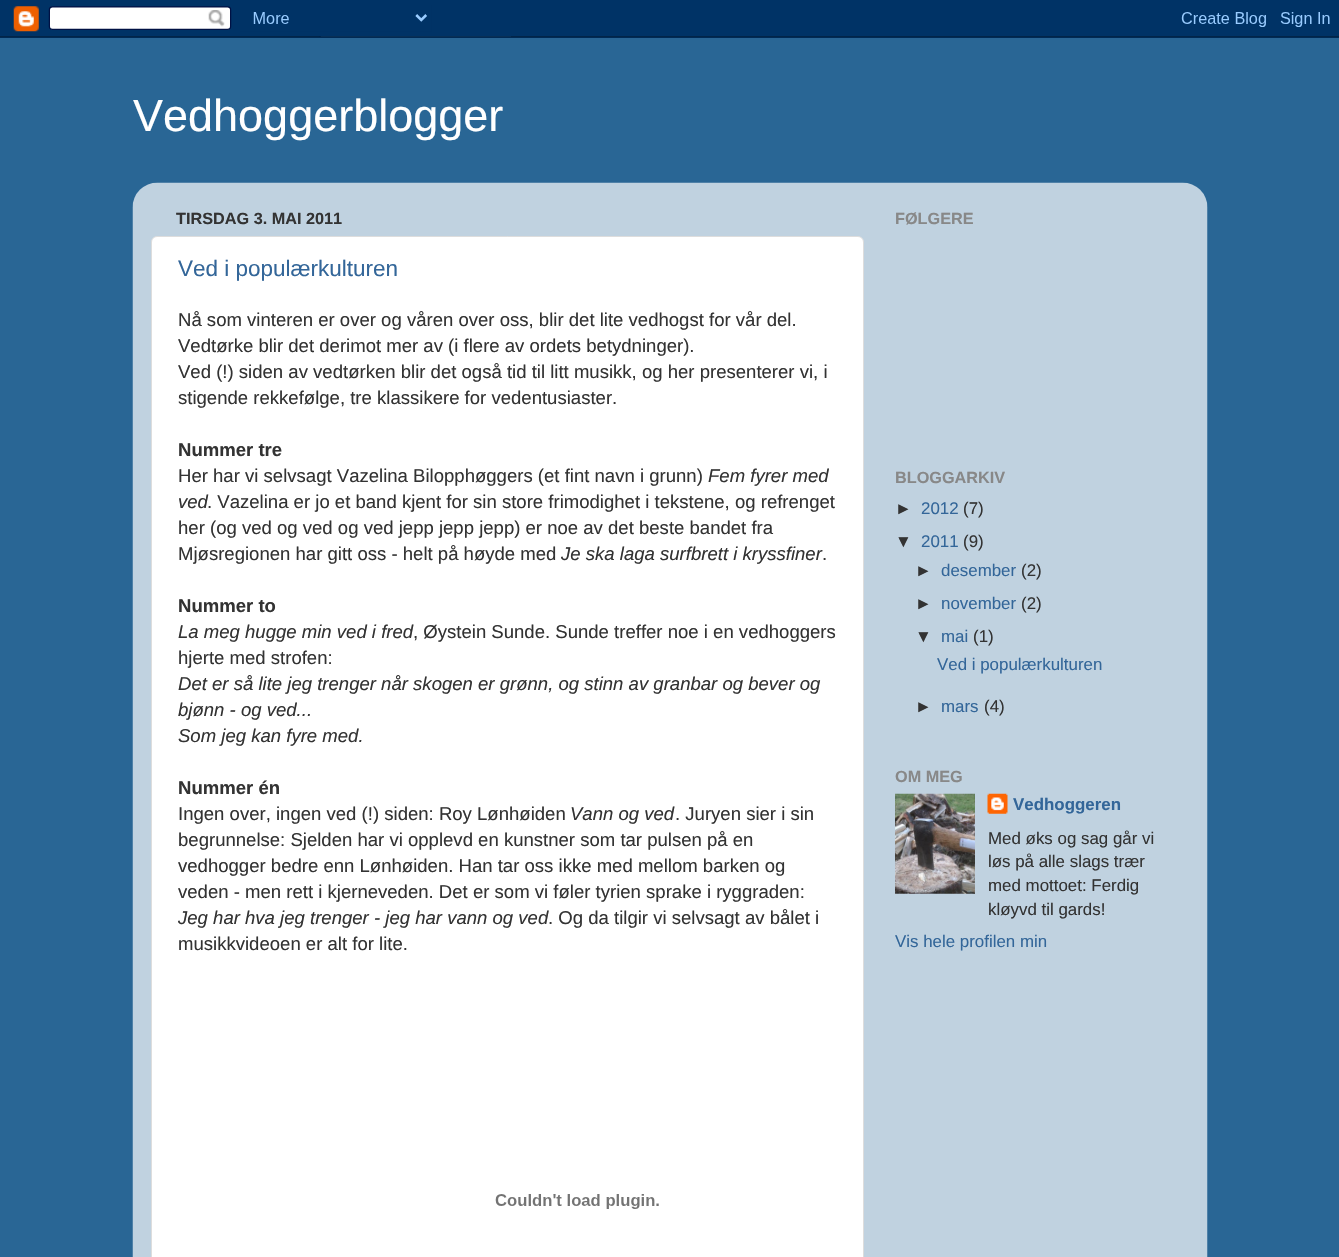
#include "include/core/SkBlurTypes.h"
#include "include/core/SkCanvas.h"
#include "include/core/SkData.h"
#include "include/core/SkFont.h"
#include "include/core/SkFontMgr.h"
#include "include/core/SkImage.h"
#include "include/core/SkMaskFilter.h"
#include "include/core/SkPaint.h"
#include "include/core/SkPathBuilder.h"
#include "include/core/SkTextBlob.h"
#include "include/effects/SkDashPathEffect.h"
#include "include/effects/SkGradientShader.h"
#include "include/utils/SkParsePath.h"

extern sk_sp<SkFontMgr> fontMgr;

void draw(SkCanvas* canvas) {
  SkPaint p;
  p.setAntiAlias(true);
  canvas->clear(SkColorSetRGB(41, 102, 149));
  canvas->drawImageRect(SkImages::DeferredFromEncodedData(SkData::MakeFromFileName("images/1.png")), SkRect::MakeLTRB(0, 0, 1339, 38), SkSamplingOptions());
  canvas->drawImageRect(SkImages::DeferredFromEncodedData(SkData::MakeFromFileName("images/2.png")), SkRect::MakeLTRB(132, 182, 1208, 1257), SkSamplingOptions());
  p.setColor(SK_ColorWHITE);
  canvas->drawRoundRect(SkRect::MakeLTRB(151.5f, 236.5f, 863.5f, 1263.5f), 5.5f, 5.5f, p);
  p.setStyle(SkPaint::kStroke_Style);
  p.setStrokeWidth(1);
  p.setColor(SkColorSetRGB(221, 221, 221));
  canvas->drawRoundRect(SkRect::MakeLTRB(151.5f, 236.5f, 863.5f, 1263.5f), 5.5f, 5.5f, p);
  canvas->drawImageRect(SkImages::DeferredFromEncodedData(SkData::MakeFromFileName("images/3.png")), SkRect::MakeLTRB(495, 1194, 659, 1209), SkSamplingOptions());
  canvas->drawImageRect(SkImages::DeferredFromEncodedData(SkData::MakeFromFileName("images/4.png")), SkRect::MakeLTRB(895, 793, 975, 894), SkSamplingOptions());
  canvas->drawImageRect(SkImages::DeferredFromEncodedData(SkData::MakeFromFileName("images/5.png")), SkRect::MakeLTRB(987, 793, 1008, 814), SkSamplingOptions());
  SkFont font1(fontMgr->matchFamilyStyle("Liberation Sans", SkFontStyle::Normal()), 45);
  font1.setSubpixel(true);
  p.setStyle(SkPaint::kFill_Style);
  p.setColor(SK_ColorWHITE);
  canvas->drawString("Vedhoggerblogger", 133, 131, font1, p);
  SkFont font2(fontMgr->matchFamilyStyle("Liberation Sans", SkFontStyle::Bold()), 16.25f);
  font2.setSubpixel(true);
  p.setColor(SkColorSetRGB(51, 51, 51));
  canvas->drawString("TIRSDAG 3. MAI 2011", 176, 224, font2, p);
  SkFont font3(fontMgr->matchFamilyStyle("Liberation Sans", SkFontStyle::Normal()), 22.5f);
  font3.setSubpixel(true);
  p.setColor(SkColorSetRGB(51, 102, 153));
  canvas->drawString("Ved i populærkulturen", 178, 276, font3, p);
  SkFont font4(fontMgr->matchFamilyStyle("Liberation Sans", SkFontStyle::Normal()), 18.55f);
  font4.setSubpixel(true);
  p.setColor(SkColorSetRGB(51, 51, 51));
  canvas->drawString("Nå som vinteren er over og våren over oss, blir det lite vedhogst for vår del.", 178, 326, font4, p);
  canvas->drawString("Vedtørke blir det derimot mer av (i flere av ordets betydninger).", 178, 352, font4, p);
  canvas->drawString("Ved (!) siden av vedtørken blir det også tid til litt musikk, og her presenterer vi, i", 178, 378, font4, p);
  canvas->drawString("stigende rekkefølge, tre klassikere for vedentusiaster.", 178, 404, font4, p);
  SkFont font5(fontMgr->matchFamilyStyle("Liberation Sans", SkFontStyle::Bold()), 18.55f);
  font5.setSubpixel(true);
  canvas->drawString("Nummer tre", 178, 456, font5, p);
  canvas->drawString("Her har vi selvsagt Vazelina Bilopphøggers (et fint navn i grunn)", 178, 482, font4, p);
  SkFont font6(fontMgr->matchFamilyStyle("Liberation Sans", SkFontStyle::Italic()), 18.55f);
  font6.setSubpixel(true);
  canvas->drawString("Fem fyrer med", 708, 482, font6, p);
  canvas->drawString("ved", 178, 508, font6, p);
  canvas->drawString(". Vazelina er jo et band kjent for sin store frimodighet i tekstene, og refrenget", 207, 508, font4, p);
  canvas->drawString("her (og ved og ved og ved jepp jepp jepp) er noe av det beste bandet fra", 178, 534, font4, p);
  canvas->drawString("Mjøsregionen har gitt oss - helt på høyde med", 178, 560, font4, p);
  canvas->drawString("Je ska laga surfbrett i kryssfiner", 561, 560, font6, p);
  canvas->drawString(".", 822, 560, font4, p);
  canvas->drawString("Nummer to", 178, 612, font5, p);
  canvas->drawString("La meg hugge min ved i fred", 178, 638, font6, p);
  canvas->drawString(", Øystein Sunde. Sunde treffer noe i en vedhoggers", 413, 638, font4, p);
  canvas->drawString("hjerte med strofen:", 178, 664, font4, p);
  canvas->drawString("Det er så lite jeg trenger når skogen er grønn, og stinn av granbar og bever og", 178, 690, font6, p);
  canvas->drawString("bjønn - og ved...", 178, 716, font6, p);
  canvas->drawString("Som jeg kan fyre med.", 178, 742, font6, p);
  canvas->drawString("Nummer én", 178, 794, font5, p);
  canvas->drawString("Ingen over, ingen ved (!) siden: Roy Lønhøiden", 178, 820, font4, p);
  canvas->drawString("Vann og ved", 570, 820, font6, p);
  canvas->drawString(". Juryen sier i sin", 675, 820, font4, p);
  canvas->drawString("begrunnelse: Sjelden har vi opplevd en kunstner som tar pulsen på en", 178, 846, font4, p);
  canvas->drawString("vedhogger bedre enn Lønhøiden. Han tar oss ikke med mellom barken og", 178, 872, font4, p);
  canvas->drawString("veden - men rett i kjerneveden. Det er som vi føler tyrien sprake i ryggraden:", 178, 898, font4, p);
  canvas->drawString("Jeg har hva jeg trenger - jeg har vann og ved", 178, 924, font6, p);
  canvas->drawString(". Og da tilgir vi selvsagt av bålet i", 548, 924, font4, p);
  canvas->drawString("musikkvideoen er alt for lite.", 178, 950, font4, p);
  p.setColor(SkColorSetRGB(136, 136, 136));
  canvas->drawString("FØLGERE", 895, 224, font2, p);
  canvas->drawString("BLOGGARKIV", 895, 483, font2, p);
  SkFont font7(fontMgr->matchFamilyStyle("Liberation Sans", SkFontStyle::Normal()), 16.9f);
  font7.setSubpixel(true);
  p.setColor(SkColorSetRGB(51, 51, 51));
  canvas->drawString("►", 895, 514, font7, p);
  p.setColor(SkColorSetRGB(51, 102, 153));
  canvas->drawString("2012", 921, 514, font7, p);
  p.setColor(SkColorSetRGB(51, 51, 51));
  canvas->drawString("(7)", 963, 514, font7, p);
  canvas->drawString("▼", 895, 547, font7, p);
  p.setColor(SkColorSetRGB(51, 102, 153));
  canvas->drawString("2011", 921, 547, font7, p);
  p.setColor(SkColorSetRGB(51, 51, 51));
  canvas->drawString("(9)", 963, 547, font7, p);
  canvas->drawString("►", 915, 576, font7, p);
  p.setColor(SkColorSetRGB(51, 102, 153));
  canvas->drawString("desember", 941, 576, font7, p);
  p.setColor(SkColorSetRGB(51, 51, 51));
  canvas->drawString("(2)", 1021, 576, font7, p);
  canvas->drawString("►", 915, 609, font7, p);
  p.setColor(SkColorSetRGB(51, 102, 153));
  canvas->drawString("november", 941, 609, font7, p);
  p.setColor(SkColorSetRGB(51, 51, 51));
  canvas->drawString("(2)", 1021, 609, font7, p);
  canvas->drawString("▼", 915, 642, font7, p);
  p.setColor(SkColorSetRGB(51, 102, 153));
  canvas->drawString("mai", 941, 642, font7, p);
  p.setColor(SkColorSetRGB(51, 51, 51));
  canvas->drawString("(1)", 973, 642, font7, p);
  p.setColor(SkColorSetRGB(51, 102, 153));
  canvas->drawString("Ved i populærkulturen", 937, 670, font7, p);
  p.setColor(SkColorSetRGB(51, 51, 51));
  canvas->drawString("►", 915, 712, font7, p);
  p.setColor(SkColorSetRGB(51, 102, 153));
  canvas->drawString("mars", 941, 712, font7, p);
  p.setColor(SkColorSetRGB(51, 51, 51));
  canvas->drawString("(4)", 984, 712, font7, p);
  p.setColor(SkColorSetRGB(136, 136, 136));
  canvas->drawString("OM MEG", 895, 782, font2, p);
  SkFont font8(fontMgr->matchFamilyStyle("Liberation Sans", SkFontStyle::Bold()), 16.9f);
  font8.setSubpixel(true);
  p.setColor(SkColorSetRGB(51, 102, 153));
  canvas->drawString("Vedhoggeren", 1013, 810, font8, p);
  p.setColor(SkColorSetRGB(51, 51, 51));
  canvas->drawString("Med øks og sag går vi", 988, 844, font7, p);
  canvas->drawString("løs på alle slags trær", 988, 867, font7, p);
  canvas->drawString("med mottoet: Ferdig", 988, 891, font7, p);
  canvas->drawString("kløyvd til gards!", 988, 915, font7, p);
  p.setColor(SkColorSetRGB(51, 102, 153));
  canvas->drawString("Vis hele profilen min", 895, 947, font7, p);
}
